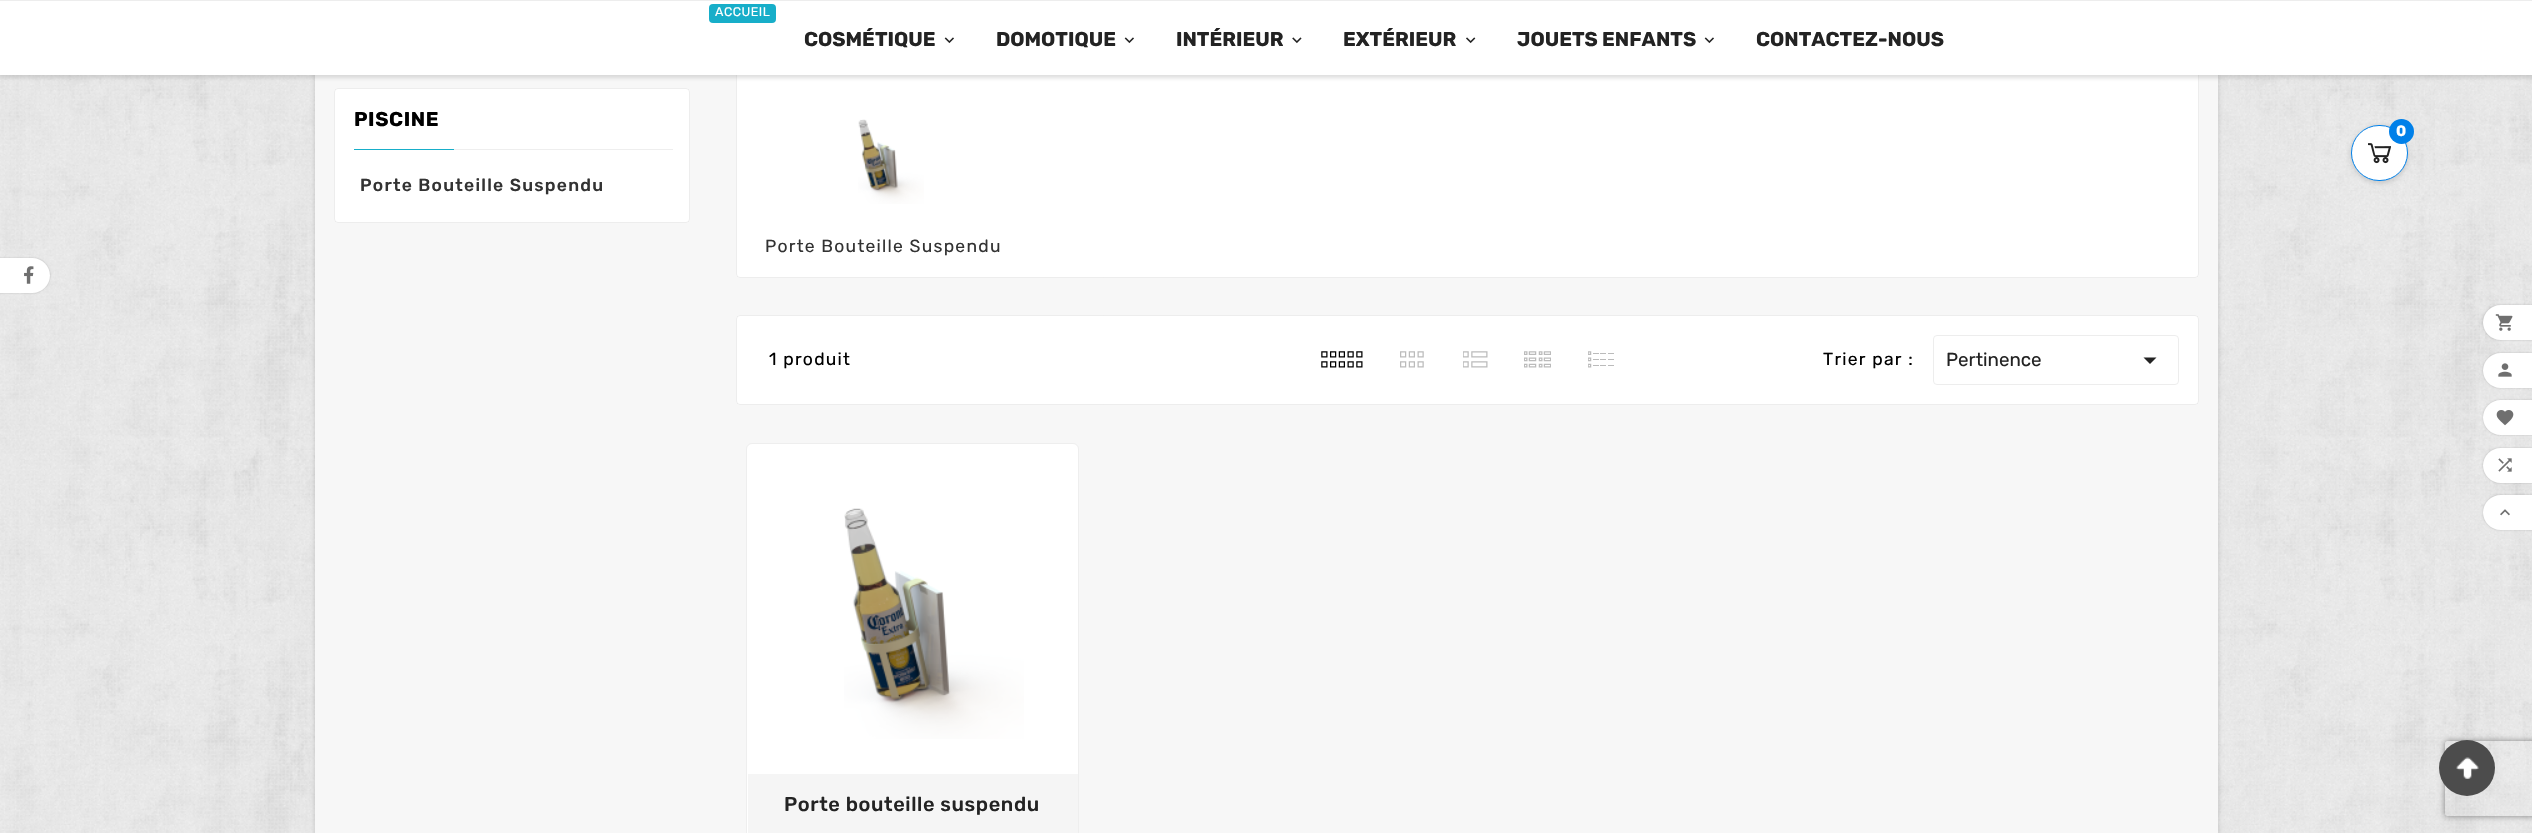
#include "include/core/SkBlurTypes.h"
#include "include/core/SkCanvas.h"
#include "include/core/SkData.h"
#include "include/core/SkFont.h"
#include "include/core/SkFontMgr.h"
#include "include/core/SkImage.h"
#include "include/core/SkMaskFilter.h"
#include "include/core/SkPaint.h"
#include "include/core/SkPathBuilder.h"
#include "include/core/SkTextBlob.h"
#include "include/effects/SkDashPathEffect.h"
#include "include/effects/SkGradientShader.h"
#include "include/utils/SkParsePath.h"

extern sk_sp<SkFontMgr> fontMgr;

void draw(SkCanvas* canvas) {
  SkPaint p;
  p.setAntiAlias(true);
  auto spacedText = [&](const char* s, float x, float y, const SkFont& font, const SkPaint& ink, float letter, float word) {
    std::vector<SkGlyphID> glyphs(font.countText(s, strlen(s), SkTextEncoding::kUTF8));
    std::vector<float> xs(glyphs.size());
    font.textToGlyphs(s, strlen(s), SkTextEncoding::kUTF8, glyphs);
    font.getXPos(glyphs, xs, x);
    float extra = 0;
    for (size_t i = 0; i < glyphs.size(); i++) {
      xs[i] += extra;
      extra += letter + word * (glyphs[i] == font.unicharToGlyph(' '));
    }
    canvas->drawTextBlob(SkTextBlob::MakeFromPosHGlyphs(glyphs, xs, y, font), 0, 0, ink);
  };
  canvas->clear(SkColorSetRGB(242, 242, 242));
  canvas->drawImageRect(SkImages::DeferredFromEncodedData(SkData::MakeFromFileName("images/1.png")), SkRect::MakeLTRB(0, 75, 2532, 833), SkSamplingOptions());
  p.setColor(SkColorSetARGB(69, 128, 128, 128));
  p.setMaskFilter(SkMaskFilter::MakeBlur(kNormal_SkBlurStyle, 2));
  canvas->drawRect(SkRect::MakeLTRB(314, -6, 2219, 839), p);
  p.setMaskFilter(nullptr);
  p.setColor(SkColorSetRGB(247, 247, 247));
  canvas->drawRect(SkRect::MakeLTRB(315, 75, 2218, 833), p);
  p.setColor(SK_ColorWHITE);
  canvas->drawRoundRect(SkRect::MakeLTRB(736, 29, 2199, 278), 4, 4, p);
  p.setStyle(SkPaint::kStroke_Style);
  p.setStrokeWidth(1);
  p.setColor(SkColorSetARGB(18, 0, 0, 0));
  canvas->drawRoundRect(SkRect::MakeLTRB(736.5f, 29.5f, 2198.5f, 277.5f), 3.5f, 3.5f, p);
  p.setStyle(SkPaint::kFill_Style);
  p.setColor(SkColorSetARGB(69, 128, 128, 128));
  p.setMaskFilter(SkMaskFilter::MakeBlur(kNormal_SkBlurStyle, 2));
  canvas->drawRect(SkRect::MakeLTRB(-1, 0, 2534, 78), p);
  p.setMaskFilter(nullptr);
  p.setColor(SK_ColorWHITE);
  canvas->drawRect(SkRect::MakeLTRB(0, 1, 2532, 75), p);
  p.setColor(SkColorSetRGB(237, 237, 237));
  canvas->drawRect(SkRect::MakeLTRB(0, 0, 2532, 1), p);
  p.setColor(SkColorSetRGB(23, 174, 201));
  canvas->drawRoundRect(SkRect::MakeLTRB(709, 4, 776, 23), 4, 4, p);
  canvas->drawImageRect(SkImages::DeferredFromEncodedData(SkData::MakeFromFileName("images/2.png")), SkRect::MakeLTRB(944, 37, 954, 44), SkSamplingOptions());
  canvas->drawImageRect(SkImages::DeferredFromEncodedData(SkData::MakeFromFileName("images/2.png")), SkRect::MakeLTRB(1124, 37, 1134, 44), SkSamplingOptions());
  canvas->drawImageRect(SkImages::DeferredFromEncodedData(SkData::MakeFromFileName("images/3.png")), SkRect::MakeLTRB(1292, 37, 1302, 44), SkSamplingOptions());
  canvas->drawImageRect(SkImages::DeferredFromEncodedData(SkData::MakeFromFileName("images/4.png")), SkRect::MakeLTRB(1466, 37, 1476, 44), SkSamplingOptions());
  canvas->drawImageRect(SkImages::DeferredFromEncodedData(SkData::MakeFromFileName("images/2.png")), SkRect::MakeLTRB(1704, 37, 1714, 44), SkSamplingOptions());
  p.setColor(SkColorSetARGB(69, 128, 128, 128));
  p.setMaskFilter(SkMaskFilter::MakeBlur(kNormal_SkBlurStyle, 2));
  canvas->drawRoundRect(SkRect::MakeLTRB(2350, 125, 2409, 184), 29.5f, 29.5f, p);
  p.setMaskFilter(nullptr);
  p.setColor(SK_ColorWHITE);
  canvas->drawRoundRect(SkRect::MakeLTRB(2351.5f, 125.5f, 2407.5f, 180.5f), 27.5f, 27.5f, p);
  p.setStyle(SkPaint::kStroke_Style);
  p.setColor(SkColorSetRGB(0, 128, 233));
  canvas->drawRoundRect(SkRect::MakeLTRB(2351.5f, 125.5f, 2407.5f, 180.5f), 27.5f, 27.5f, p);
  canvas->drawImageRect(SkImages::DeferredFromEncodedData(SkData::MakeFromFileName("images/5.png")), SkRect::MakeLTRB(2368, 143, 2391, 164), SkSamplingOptions());
  p.setStyle(SkPaint::kFill_Style);
  canvas->drawCircle(2401.5f, 131.5f, 12.5f, p);
  p.setColor(SK_ColorWHITE);
  canvas->drawRoundRect(SkRect::MakeLTRB(334, 88, 690, 223), 4, 4, p);
  p.setStyle(SkPaint::kStroke_Style);
  p.setColor(SkColorSetARGB(18, 0, 0, 0));
  canvas->drawRoundRect(SkRect::MakeLTRB(334.5f, 88.5f, 689.5f, 222.5f), 3.5f, 3.5f, p);
  p.setStyle(SkPaint::kFill_Style);
  p.setColor(SkColorSetRGB(23, 174, 201));
  canvas->drawRect(SkRect::MakeLTRB(354, 149, 454, 150), p);
  p.setColor(SkColorSetRGB(238, 238, 238));
  canvas->drawRect(SkRect::MakeLTRB(454, 149, 673, 150), p);
  canvas->drawImageRect(SkImages::DeferredFromEncodedData(SkData::MakeFromFileName("images/6.png")), SkRect::MakeLTRB(858, 119, 924, 204), SkSamplingOptions());
  p.setColor(SK_ColorWHITE);
  canvas->drawRoundRect(SkRect::MakeLTRB(736, 315, 2199, 405), 4, 4, p);
  p.setStyle(SkPaint::kStroke_Style);
  p.setColor(SkColorSetARGB(18, 0, 0, 0));
  canvas->drawRoundRect(SkRect::MakeLTRB(736.5f, 315.5f, 2198.5f, 404.5f), 3.5f, 3.5f, p);
  canvas->drawImageRect(SkImages::DeferredFromEncodedData(SkData::MakeFromFileName("images/7.png")), SkRect::MakeLTRB(1321, 351, 1363, 368), SkSamplingOptions());
  canvas->drawImageRect(SkImages::DeferredFromEncodedData(SkData::MakeFromFileName("images/8.png")), SkRect::MakeLTRB(1400, 351, 1424, 368), SkSamplingOptions());
  canvas->drawImageRect(SkImages::DeferredFromEncodedData(SkData::MakeFromFileName("images/9.png")), SkRect::MakeLTRB(1463, 351, 1488, 368), SkSamplingOptions());
  canvas->drawImageRect(SkImages::DeferredFromEncodedData(SkData::MakeFromFileName("images/10.png")), SkRect::MakeLTRB(1524, 351, 1551, 368), SkSamplingOptions());
  canvas->drawImageRect(SkImages::DeferredFromEncodedData(SkData::MakeFromFileName("images/11.png")), SkRect::MakeLTRB(1588, 351, 1614, 368), SkSamplingOptions());
  p.setColor(SkColorSetRGB(237, 237, 237));
  canvas->drawRoundRect(SkRect::MakeLTRB(1933.5f, 335.5f, 2178.5f, 384.5f), 3.5f, 3.5f, p);
  p.setStyle(SkPaint::kFill_Style);
  p.setColor(SkColorSetRGB(35, 35, 35));
  canvas->drawPath(SkPathBuilder().moveTo(2143.5f, 357.5f).lineTo(2156.5f, 357.5f).lineTo(2150, 364).close().detach(), p);
  p.setColor(SK_ColorWHITE);
  canvas->drawRoundRect(SkRect::MakeLTRB(746.5f, 443.5f, 1078.5f, 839.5f), 5.5f, 5.5f, p);
  p.setStyle(SkPaint::kStroke_Style);
  p.setColor(SkColorSetRGB(238, 238, 238));
  canvas->drawRoundRect(SkRect::MakeLTRB(746.5f, 443.5f, 1078.5f, 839.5f), 5.5f, 5.5f, p);
  canvas->drawImageRect(SkImages::DeferredFromEncodedData(SkData::MakeFromFileName("images/12.png")), SkRect::MakeLTRB(844, 508, 1024, 739), SkSamplingOptions());
  p.setStyle(SkPaint::kFill_Style);
  p.setColor(SkColorSetRGB(245, 245, 245));
  canvas->drawRect(SkRect::MakeLTRB(748, 774, 1078, 833), p);
  p.setColor(SkColorSetARGB(51, 0, 0, 0));
  p.setMaskFilter(SkMaskFilter::MakeBlur(kNormal_SkBlurStyle, 1));
  canvas->drawRoundRect(SkRect::MakeLTRB(-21, 258, 50, 293), 17.5f, 17.5f, p);
  p.setMaskFilter(nullptr);
  p.setColor(SK_ColorWHITE);
  canvas->drawPath(SkPathBuilder().moveTo(-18, 258).lineTo(32.5f, 258).cubicTo(42, 258, 50, 266, 50, 275.5f).cubicTo(50, 285, 42, 293, 32.5f, 293).lineTo(-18, 293).close().detach(), p);
  canvas->drawImageRect(SkImages::DeferredFromEncodedData(SkData::MakeFromFileName("images/13.png")), SkRect::MakeLTRB(24, 266, 34, 284), SkSamplingOptions());
  p.setColor(SkColorSetARGB(51, 0, 0, 0));
  p.setMaskFilter(SkMaskFilter::MakeBlur(kNormal_SkBlurStyle, 1));
  canvas->drawRoundRect(SkRect::MakeLTRB(2483, 305, 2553, 340), 17.5f, 17.5f, p);
  p.setMaskFilter(nullptr);
  p.setColor(SK_ColorWHITE);
  canvas->drawPath(SkPathBuilder().moveTo(2500.5f, 305).lineTo(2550, 305).lineTo(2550, 340).lineTo(2500.5f, 340).cubicTo(2491, 340, 2483, 332, 2483, 322.5f).cubicTo(2483, 313, 2491, 305, 2500.5f, 305).close().detach(), p);
  canvas->drawImageRect(SkImages::DeferredFromEncodedData(SkData::MakeFromFileName("images/14.png")), SkRect::MakeLTRB(2495, 314, 2513, 331), SkSamplingOptions());
  p.setColor(SkColorSetARGB(51, 0, 0, 0));
  p.setMaskFilter(SkMaskFilter::MakeBlur(kNormal_SkBlurStyle, 1));
  canvas->drawRoundRect(SkRect::MakeLTRB(2483, 353, 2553, 388), 17.5f, 17.5f, p);
  p.setMaskFilter(nullptr);
  p.setColor(SK_ColorWHITE);
  canvas->drawPath(SkPathBuilder().moveTo(2500.5f, 353).lineTo(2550, 353).lineTo(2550, 388).lineTo(2500.5f, 388).cubicTo(2491, 388, 2483, 380, 2483, 370.5f).cubicTo(2483, 361, 2491, 353, 2500.5f, 353).close().detach(), p);
  canvas->drawImageRect(SkImages::DeferredFromEncodedData(SkData::MakeFromFileName("images/15.png")), SkRect::MakeLTRB(2498, 363, 2512, 377), SkSamplingOptions());
  p.setColor(SkColorSetARGB(51, 0, 0, 0));
  p.setMaskFilter(SkMaskFilter::MakeBlur(kNormal_SkBlurStyle, 1));
  canvas->drawRoundRect(SkRect::MakeLTRB(2483, 400, 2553, 435), 17.5f, 17.5f, p);
  p.setMaskFilter(nullptr);
  p.setColor(SK_ColorWHITE);
  canvas->drawPath(SkPathBuilder().moveTo(2500.5f, 400).lineTo(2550, 400).lineTo(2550, 435).lineTo(2500.5f, 435).cubicTo(2491, 435, 2483, 427, 2483, 417.5f).cubicTo(2483, 408, 2491, 400, 2500.5f, 400).close().detach(), p);
  canvas->drawImageRect(SkImages::DeferredFromEncodedData(SkData::MakeFromFileName("images/16.png")), SkRect::MakeLTRB(2496, 410, 2514, 426), SkSamplingOptions());
  p.setColor(SkColorSetARGB(51, 0, 0, 0));
  p.setMaskFilter(SkMaskFilter::MakeBlur(kNormal_SkBlurStyle, 1));
  canvas->drawRoundRect(SkRect::MakeLTRB(2483, 448, 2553, 483), 17.5f, 17.5f, p);
  p.setMaskFilter(nullptr);
  p.setColor(SK_ColorWHITE);
  canvas->drawPath(SkPathBuilder().moveTo(2500.5f, 448).lineTo(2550, 448).lineTo(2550, 483).lineTo(2500.5f, 483).cubicTo(2491, 483, 2483, 475, 2483, 465.5f).cubicTo(2483, 456, 2491, 448, 2500.5f, 448).close().detach(), p);
  canvas->drawImageRect(SkImages::DeferredFromEncodedData(SkData::MakeFromFileName("images/17.png")), SkRect::MakeLTRB(2498, 458, 2512, 472), SkSamplingOptions());
  p.setColor(SkColorSetARGB(51, 0, 0, 0));
  p.setMaskFilter(SkMaskFilter::MakeBlur(kNormal_SkBlurStyle, 1));
  canvas->drawRoundRect(SkRect::MakeLTRB(2483, 495, 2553, 530), 17.5f, 17.5f, p);
  p.setMaskFilter(nullptr);
  p.setColor(SK_ColorWHITE);
  canvas->drawPath(SkPathBuilder().moveTo(2500.5f, 495).lineTo(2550, 495).lineTo(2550, 530).lineTo(2500.5f, 530).cubicTo(2491, 530, 2483, 522, 2483, 512.5f).cubicTo(2483, 503, 2491, 495, 2500.5f, 495).close().detach(), p);
  canvas->drawImageRect(SkImages::DeferredFromEncodedData(SkData::MakeFromFileName("images/18.png")), SkRect::MakeLTRB(2500, 509, 2510, 516), SkSamplingOptions());
  canvas->save();
  canvas->clipPath(SkPathBuilder(SkPathFillType::kEvenOdd).moveTo(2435, 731).lineTo(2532, 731).lineTo(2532, 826).lineTo(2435, 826).close().moveTo(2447.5f, 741).lineTo(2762.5f, 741).cubicTo(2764, 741, 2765, 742, 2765, 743.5f).lineTo(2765, 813.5f).cubicTo(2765, 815, 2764, 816, 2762.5f, 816).lineTo(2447.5f, 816).cubicTo(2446, 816, 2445, 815, 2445, 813.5f).lineTo(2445, 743.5f).cubicTo(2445, 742, 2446, 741, 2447.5f, 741).close().detach(), true);
  p.setColor(SkColorSetRGB(128, 128, 128));
  p.setMaskFilter(SkMaskFilter::MakeBlur(kNormal_SkBlurStyle, 3));
  canvas->drawRoundRect(SkRect::MakeLTRB(2445, 741, 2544, 816), 2.5f, 2.5f, p);
  p.setMaskFilter(nullptr);
  canvas->restore();
  p.setColor(SkColorSetRGB(76, 76, 76));
  canvas->drawCircle(2467, 768, 28, p);
  canvas->drawImageRect(SkImages::DeferredFromEncodedData(SkData::MakeFromFileName("images/19.png")), SkRect::MakeLTRB(2456, 757, 2479, 779), SkSamplingOptions());
  SkFont font1(fontMgr->matchFamilyStyle("Rubik", SkFontStyle::Normal()), 12.5f);
  font1.setSubpixel(true);
  p.setColor(SK_ColorWHITE);
  spacedText("ACCUEIL", 715, 16, font1, p, 0.5f, 0);
  SkFont font2(fontMgr->matchFamilyStyle("Rubik", SkFontStyle::Bold()), 20);
  font2.setSubpixel(true);
  p.setColor(SkColorSetRGB(35, 35, 35));
  canvas->drawString("COSMÉTIQUE", 804, 46, font2, p);
  canvas->drawString("DOMOTIQUE", 996, 46, font2, p);
  canvas->drawString("INTÉRIEUR", 1176, 46, font2, p);
  canvas->drawString("EXTÉRIEUR", 1343, 46, font2, p);
  canvas->drawString("JOUETS ENFANTS", 1517, 46, font2, p);
  canvas->drawString("CONTACTEZ-NOUS", 1756, 46, font2, p);
  SkFont font3(fontMgr->matchFamilyStyle("Rubik", SkFontStyle::Bold()), 15);
  font3.setSubpixel(true);
  p.setColor(SK_ColorWHITE);
  spacedText("0", 2396, 136, font3, p, 1.25f, 0);
  p.setColor(SK_ColorBLACK);
  spacedText("PISCINE", 354, 126, font2, p, 0.6f, 0);
  SkFont font4(fontMgr->matchFamilyStyle("Rubik", SkFontStyle(500, SkFontStyle::kNormal_Width, SkFontStyle::kUpright_Slant)), 17.5f);
  font4.setSubpixel(true);
  p.setColor(SkColorSetRGB(51, 51, 51));
  spacedText("Porte Bouteille Suspendu", 360, 191, font4, p, 1.25f, 0);
  SkFont font5(fontMgr->matchFamilyStyle("Rubik", SkFontStyle::Normal()), 17.5f);
  font5.setSubpixel(true);
  spacedText("Porte Bouteille Suspendu", 765, 252, font5, p, 1.25f, 0);
  p.setColor(SK_ColorBLACK);
  spacedText("1 produit", 769, 365, font5, p, 1.25f, 0);
  spacedText("Trier par :", 1823, 365, font5, p, 1.25f, 0);
  SkFont font6(fontMgr->matchFamilyStyle("Rubik", SkFontStyle::Normal()), 18.75f);
  font6.setSubpixel(true);
  p.setColor(SkColorSetRGB(35, 35, 35));
  canvas->drawString("Pertinence", 1946, 366, font6, p);
  SkFont font7(fontMgr->matchFamilyStyle("Rubik", SkFontStyle(500, SkFontStyle::kNormal_Width, SkFontStyle::kUpright_Slant)), 20);
  font7.setSubpixel(true);
  spacedText("Porte bouteille suspendu", 784, 811, font7, p, 0.6f, 0);
}
